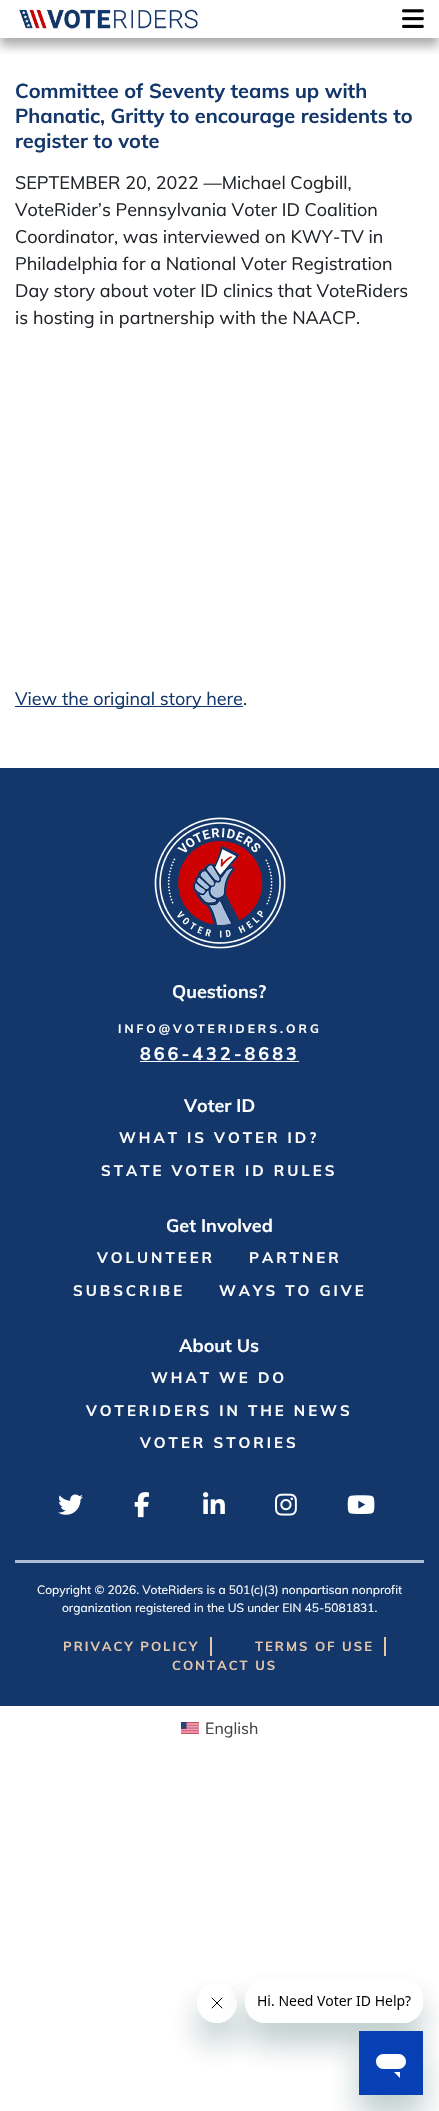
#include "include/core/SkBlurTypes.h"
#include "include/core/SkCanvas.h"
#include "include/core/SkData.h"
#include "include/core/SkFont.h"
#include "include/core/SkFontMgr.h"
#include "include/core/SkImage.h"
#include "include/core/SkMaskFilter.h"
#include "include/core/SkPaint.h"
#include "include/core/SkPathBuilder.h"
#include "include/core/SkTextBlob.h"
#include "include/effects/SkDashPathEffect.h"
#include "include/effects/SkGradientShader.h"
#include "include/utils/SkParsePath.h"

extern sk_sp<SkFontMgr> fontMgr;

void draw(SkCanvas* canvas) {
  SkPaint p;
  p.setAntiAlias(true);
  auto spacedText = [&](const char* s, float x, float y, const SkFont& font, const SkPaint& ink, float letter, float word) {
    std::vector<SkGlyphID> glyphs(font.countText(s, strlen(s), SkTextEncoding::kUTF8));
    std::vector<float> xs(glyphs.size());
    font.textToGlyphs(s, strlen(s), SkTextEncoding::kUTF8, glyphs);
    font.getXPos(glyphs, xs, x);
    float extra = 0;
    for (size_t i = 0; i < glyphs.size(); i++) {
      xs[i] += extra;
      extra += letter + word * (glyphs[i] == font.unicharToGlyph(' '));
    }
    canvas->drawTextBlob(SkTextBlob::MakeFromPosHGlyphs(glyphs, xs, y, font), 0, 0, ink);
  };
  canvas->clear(SK_ColorWHITE);
  canvas->save();
  canvas->clipRect(SkRect::MakeLTRB(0, 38, 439, 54));
  p.setColor(SkColorSetARGB(82, 0, 0, 0));
  p.setMaskFilter(SkMaskFilter::MakeBlur(kNormal_SkBlurStyle, 5));
  canvas->drawRect(SkRect::MakeLTRB(0, 8, 439, 46), p);
  p.setMaskFilter(nullptr);
  canvas->restore();
  canvas->drawImageRect(SkImages::DeferredFromEncodedData(SkData::MakeFromFileName("images/1.png")), SkRect::MakeLTRB(19, 9, 198, 29), SkSamplingOptions());
  canvas->drawImageRect(SkImages::DeferredFromEncodedData(SkData::MakeFromFileName("images/2.png")), SkRect::MakeLTRB(402, 9, 424, 28), SkSamplingOptions());
  p.setColor(SkColorSetRGB(19, 55, 107));
  canvas->drawRect(SkRect::MakeLTRB(15, 706, 243, 707), p);
  canvas->drawRect(SkRect::MakeLTRB(0, 768, 439, 1706), p);
  canvas->drawImageRect(SkImages::DeferredFromEncodedData(SkData::MakeFromFileName("images/3.png")), SkRect::MakeLTRB(154, 817, 286, 949), SkSamplingOptions());
  p.setColor(SK_ColorWHITE);
  canvas->drawRect(SkRect::MakeLTRB(140, 1061, 299, 1062), p);
  canvas->drawImageRect(SkImages::DeferredFromEncodedData(SkData::MakeFromFileName("images/4.png")), SkRect::MakeLTRB(58, 1494, 83, 1515), SkSamplingOptions());
  canvas->drawImageRect(SkImages::DeferredFromEncodedData(SkData::MakeFromFileName("images/5.png")), SkRect::MakeLTRB(134, 1492, 149, 1518), SkSamplingOptions());
  canvas->drawImageRect(SkImages::DeferredFromEncodedData(SkData::MakeFromFileName("images/6.png")), SkRect::MakeLTRB(203, 1492, 225, 1514), SkSamplingOptions());
  canvas->drawImageRect(SkImages::DeferredFromEncodedData(SkData::MakeFromFileName("images/7.png")), SkRect::MakeLTRB(275, 1493, 297, 1516), SkSamplingOptions());
  canvas->drawImageRect(SkImages::DeferredFromEncodedData(SkData::MakeFromFileName("images/8.png")), SkRect::MakeLTRB(347, 1495, 375, 1514), SkSamplingOptions());
  p.setColor(SkColorSetRGB(172, 190, 215));
  canvas->drawRect(SkRect::MakeLTRB(15, 1560, 424, 1563), p);
  p.setColor(SkColorSetRGB(229, 199, 172));
  canvas->drawRect(SkRect::MakeLTRB(210, 1637, 212, 1656), p);
  canvas->drawRect(SkRect::MakeLTRB(384, 1637, 386, 1656), p);
  canvas->drawImageRect(SkImages::DeferredFromEncodedData(SkData::MakeFromFileName("images/9.png")), SkRect::MakeLTRB(181, 1722, 199, 1734), SkSamplingOptions());
  canvas->save();
  canvas->clipPath(SkPathBuilder(SkPathFillType::kEvenOdd).moveTo(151, 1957).lineTo(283, 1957).lineTo(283, 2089).lineTo(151, 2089).close().moveTo(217, 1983).cubicTo(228, 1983, 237, 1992, 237, 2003).cubicTo(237, 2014, 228, 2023, 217, 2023).cubicTo(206, 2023, 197, 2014, 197, 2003).cubicTo(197, 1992, 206, 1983, 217, 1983).close().detach(), true);
  p.setColor(SkColorSetARGB(38, 23, 73, 77));
  p.setMaskFilter(SkMaskFilter::MakeBlur(kNormal_SkBlurStyle, 15));
  canvas->drawRoundRect(SkRect::MakeLTRB(197, 2003, 237, 2043), 20, 20, p);
  p.setMaskFilter(nullptr);
  canvas->restore();
  canvas->drawImageRect(SkImages::DeferredFromEncodedData(SkData::MakeFromFileName("images/11.png")), SkRect::MakeLTRB(211, 1997, 223, 2002), SkSamplingOptions());
  canvas->save();
  canvas->clipPath(SkPathBuilder(SkPathFillType::kEvenOdd).moveTo(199, 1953).lineTo(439, 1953).lineTo(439, 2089).lineTo(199, 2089).close().moveTo(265, 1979).lineTo(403, 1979).cubicTo(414, 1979, 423, 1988, 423, 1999).lineTo(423, 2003).cubicTo(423, 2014, 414, 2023, 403, 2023).lineTo(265, 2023).cubicTo(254, 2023, 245, 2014, 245, 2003).lineTo(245, 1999).cubicTo(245, 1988, 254, 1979, 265, 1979).close().detach(), true);
  p.setMaskFilter(SkMaskFilter::MakeBlur(kNormal_SkBlurStyle, 15));
  canvas->drawRoundRect(SkRect::MakeLTRB(245, 1999, 423, 2043), 20, 20, p);
  p.setMaskFilter(nullptr);
  canvas->restore();
  canvas->drawImageRect(SkImages::DeferredFromEncodedData(SkData::MakeFromFileName("images/10.png")), SkRect::MakeLTRB(246, 1995, 417, 2023), SkSamplingOptions());
  p.setMaskFilter(SkMaskFilter::MakeBlur(kNormal_SkBlurStyle, 15));
  canvas->drawRect(SkRect::MakeLTRB(359, 2051, 423, 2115), p);
  p.setMaskFilter(nullptr);
  canvas->drawImageRect(SkImages::DeferredFromEncodedData(SkData::MakeFromFileName("images/12.png")), SkRect::MakeLTRB(359, 2061, 423, 2095), SkSamplingOptions());
  canvas->save();
  canvas->clipPath(SkPathBuilder(SkPathFillType::kEvenOdd).moveTo(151, 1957).lineTo(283, 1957).lineTo(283, 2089).lineTo(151, 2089).close().moveTo(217, 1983).cubicTo(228, 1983, 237, 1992, 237, 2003).cubicTo(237, 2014, 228, 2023, 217, 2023).cubicTo(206, 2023, 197, 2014, 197, 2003).cubicTo(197, 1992, 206, 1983, 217, 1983).close().detach(), true);
  p.setMaskFilter(SkMaskFilter::MakeBlur(kNormal_SkBlurStyle, 15));
  canvas->drawRoundRect(SkRect::MakeLTRB(197, 2003, 237, 2043), 20, 20, p);
  p.setMaskFilter(nullptr);
  canvas->restore();
  canvas->drawImageRect(SkImages::DeferredFromEncodedData(SkData::MakeFromFileName("images/14.png")), SkRect::MakeLTRB(202, 2002, 237, 2023), SkSamplingOptions());
  canvas->save();
  canvas->clipPath(SkPathBuilder(SkPathFillType::kEvenOdd).moveTo(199, 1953).lineTo(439, 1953).lineTo(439, 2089).lineTo(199, 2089).close().moveTo(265, 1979).lineTo(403, 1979).cubicTo(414, 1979, 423, 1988, 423, 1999).lineTo(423, 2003).cubicTo(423, 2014, 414, 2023, 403, 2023).lineTo(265, 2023).cubicTo(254, 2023, 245, 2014, 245, 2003).lineTo(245, 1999).cubicTo(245, 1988, 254, 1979, 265, 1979).close().detach(), true);
  p.setMaskFilter(SkMaskFilter::MakeBlur(kNormal_SkBlurStyle, 15));
  canvas->drawRoundRect(SkRect::MakeLTRB(245, 1999, 423, 2043), 20, 20, p);
  p.setMaskFilter(nullptr);
  canvas->restore();
  canvas->drawImageRect(SkImages::DeferredFromEncodedData(SkData::MakeFromFileName("images/13.png")), SkRect::MakeLTRB(245, 1997, 418, 2023), SkSamplingOptions());
  canvas->save();
  canvas->clipPath(SkPathBuilder(SkPathFillType::kEvenOdd).moveTo(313, 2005).lineTo(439, 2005).lineTo(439, 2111).lineTo(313, 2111).close().moveTo(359, 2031).lineTo(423, 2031).lineTo(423, 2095).lineTo(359, 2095).close().detach(), true);
  p.setMaskFilter(SkMaskFilter::MakeBlur(kNormal_SkBlurStyle, 15));
  canvas->drawRect(SkRect::MakeLTRB(359, 2051, 423, 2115), p);
  p.setMaskFilter(nullptr);
  canvas->restore();
  canvas->drawImageRect(SkImages::DeferredFromEncodedData(SkData::MakeFromFileName("images/15.png")), SkRect::MakeLTRB(359, 2031, 423, 2061), SkSamplingOptions());
  SkFont font1(fontMgr->matchFamilyStyle("Muli", SkFontStyle::Bold()), 20);
  font1.setSubpixel(true);
  p.setColor(SkColorSetRGB(19, 55, 107));
  canvas->drawString("Committee of Seventy teams up with", 15, 98, font1, p);
  canvas->drawString("Phanatic, Gritty to encourage residents to", 15, 123, font1, p);
  canvas->drawString("register to vote", 15, 148, font1, p);
  SkFont font2(fontMgr->matchFamilyStyle("Muli", SkFontStyle::Normal()), 18);
  font2.setSubpixel(true);
  p.setColor(SkColorSetRGB(33, 37, 41));
  canvas->drawString("SEPTEMBER 20, 2022 —Michael Cogbill,", 15, 189, font2, p);
  canvas->drawString("VoteRider’s Pennsylvania Voter ID Coalition", 15, 216, font2, p);
  canvas->drawString("Coordinator, was interviewed on KWY-TV in", 15, 243, font2, p);
  canvas->drawString("Philadelphia for a National Voter Registration", 15, 270, font2, p);
  canvas->drawString("Day story about voter ID clinics that VoteRiders", 15, 297, font2, p);
  canvas->drawString("is hosting in partnership with the NAACP.", 15, 324, font2, p);
  p.setColor(SkColorSetRGB(19, 55, 107));
  canvas->drawString("View the original story here", 15, 705, font2, p);
  p.setColor(SkColorSetRGB(33, 37, 41));
  canvas->drawString(".", 243, 705, font2, p);
  SkFont font3(fontMgr->matchFamilyStyle("Muli", SkFontStyle::Bold()), 18);
  font3.setSubpixel(true);
  p.setColor(SK_ColorWHITE);
  canvas->drawString("Questions?", 172, 998, font3, p);
  SkFont font4(fontMgr->matchFamilyStyle("Muli", SkFontStyle::Bold()), 12);
  font4.setSubpixel(true);
  spacedText("INFO@VOTERIDERS.ORG", 118, 1033, font4, p, 3, 0);
  spacedText("866-432-8683", 140, 1060, font3, p, 3, 0);
  canvas->drawString("Voter ID", 184, 1112, font3, p);
  SkFont font5(fontMgr->matchFamilyStyle("Muli", SkFontStyle::Bold()), 15);
  font5.setSubpixel(true);
  spacedText("WHAT IS VOTER ID?", 119, 1143, font5, p, 3, 0);
  spacedText("STATE VOTER ID RULES", 101, 1176, font5, p, 3, 0);
  canvas->drawString("Get Involved", 166, 1232, font3, p);
  spacedText("VOLUNTEER", 97, 1263, font5, p, 3, 0);
  spacedText("PARTNER", 249, 1263, font5, p, 3, 0);
  spacedText("SUBSCRIBE", 73, 1296, font5, p, 3, 0);
  spacedText("WAYS TO GIVE", 219, 1296, font5, p, 3, 0);
  canvas->drawString("About Us", 179, 1352, font3, p);
  spacedText("WHAT WE DO", 151, 1383, font5, p, 3, 0);
  spacedText("VOTERIDERS IN THE NEWS", 86, 1416, font5, p, 3, 0);
  spacedText("VOTER STORIES", 140, 1448, font5, p, 3, 0);
  SkFont font6(fontMgr->matchFamilyStyle("Muli", SkFontStyle::Normal()), 12);
  font6.setSubpixel(true);
  canvas->drawString("Copyright © 2026. VoteRiders is a 501(c)(3) nonpartisan nonprofit", 37, 1594, font6, p);
  canvas->drawString("organization registered in the US under EIN 45-5081831.", 62, 1612, font6, p);
  SkFont font7(fontMgr->matchFamilyStyle("Muli", SkFontStyle::Bold()), 13);
  font7.setSubpixel(true);
  p.setColor(SkColorSetRGB(229, 199, 172));
  spacedText("PRIVACY POLICY", 63, 1651, font7, p, 2, 0);
  spacedText("TERMS OF USE", 255, 1651, font7, p, 2, 0);
  spacedText("CONTACT US", 172, 1670, font7, p, 2, 0);
  SkFont font8(fontMgr->matchFamilyStyle("Muli", SkFontStyle::Normal()), 16);
  font8.setSubpixel(true);
  p.setColor(SkColorSetRGB(68, 68, 68));
  canvas->drawString("English", 205, 1734, font8, p);
}
